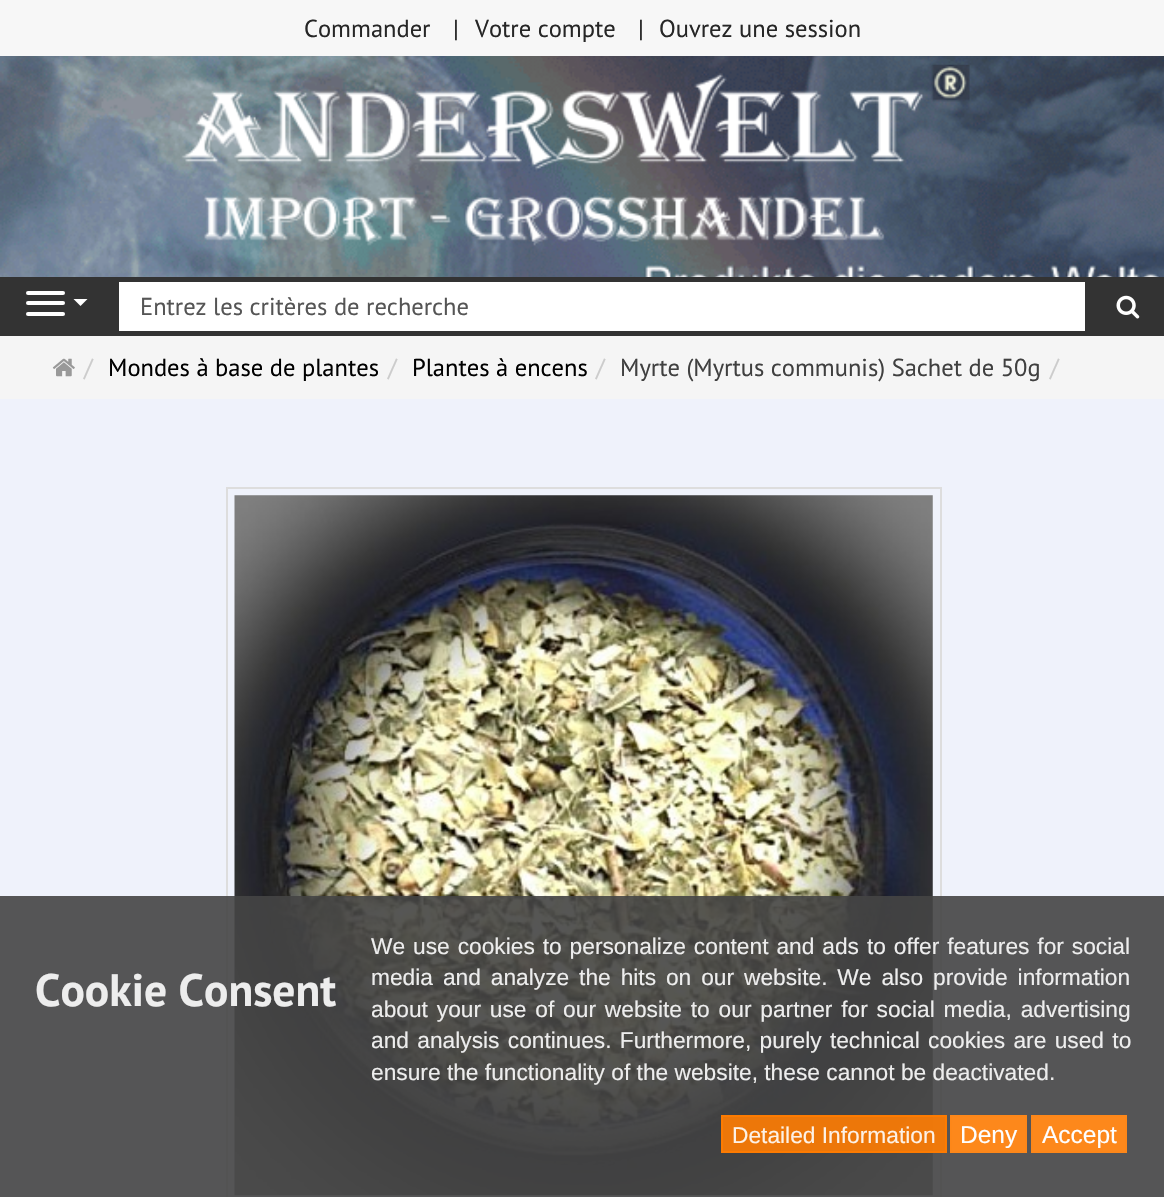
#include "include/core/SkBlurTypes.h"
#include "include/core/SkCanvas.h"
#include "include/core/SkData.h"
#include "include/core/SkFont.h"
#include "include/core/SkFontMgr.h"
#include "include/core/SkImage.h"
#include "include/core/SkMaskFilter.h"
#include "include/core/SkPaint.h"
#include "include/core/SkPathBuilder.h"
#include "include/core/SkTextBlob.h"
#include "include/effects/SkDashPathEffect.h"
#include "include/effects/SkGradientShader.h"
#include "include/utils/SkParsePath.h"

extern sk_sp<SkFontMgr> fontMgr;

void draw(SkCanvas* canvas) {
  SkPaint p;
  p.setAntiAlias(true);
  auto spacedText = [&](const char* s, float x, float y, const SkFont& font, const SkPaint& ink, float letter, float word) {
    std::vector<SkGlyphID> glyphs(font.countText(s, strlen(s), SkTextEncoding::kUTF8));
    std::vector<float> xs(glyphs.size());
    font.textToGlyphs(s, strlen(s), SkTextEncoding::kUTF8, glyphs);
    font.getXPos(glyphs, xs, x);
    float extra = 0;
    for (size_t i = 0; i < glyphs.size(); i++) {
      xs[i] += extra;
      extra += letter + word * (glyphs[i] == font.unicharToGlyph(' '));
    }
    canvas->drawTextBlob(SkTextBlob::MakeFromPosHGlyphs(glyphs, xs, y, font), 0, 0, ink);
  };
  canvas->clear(SkColorSetRGB(239, 242, 251));
  canvas->drawImageRect(SkImages::DeferredFromEncodedData(SkData::MakeFromFileName("images/1.png")), SkRect::MakeLTRB(0, 56, 1164, 277), SkSamplingOptions());
  p.setColor(SkColorSetRGB(247, 247, 247));
  canvas->drawRect(SkRect::MakeLTRB(0, 0, 1164, 56), p);
  canvas->drawImageRect(SkImages::DeferredFromEncodedData(SkData::MakeFromFileName("images/2.png")), SkRect::MakeLTRB(181, 64, 970, 246), SkSamplingOptions());
  p.setColor(SkColorSetRGB(51, 51, 51));
  canvas->drawRect(SkRect::MakeLTRB(0, 277, 1164, 336), p);
  p.setColor(SK_ColorWHITE);
  canvas->drawRoundRect(SkRect::MakeLTRB(26, 291, 65, 295), 2, 2, p);
  canvas->drawRoundRect(SkRect::MakeLTRB(26, 301, 65, 305), 2, 2, p);
  canvas->drawRoundRect(SkRect::MakeLTRB(26, 312, 65, 316), 2, 2, p);
  canvas->drawPath(SkPathBuilder().moveTo(73.5f, 299).lineTo(87.5f, 299).lineTo(80.5f, 306).close().detach(), p);
  canvas->drawRect(SkRect::MakeLTRB(119, 282, 1085, 331), p);
  canvas->drawImageRect(SkImages::DeferredFromEncodedData(SkData::MakeFromFileName("images/3.png")), SkRect::MakeLTRB(1116, 295, 1140, 319), SkSamplingOptions());
  p.setColor(SkColorSetRGB(245, 245, 245));
  canvas->drawRect(SkRect::MakeLTRB(0, 336, 1164, 399), p);
  canvas->drawImageRect(SkImages::DeferredFromEncodedData(SkData::MakeFromFileName("images/4.png")), SkRect::MakeLTRB(52, 358, 75, 377), SkSamplingOptions());
  p.setStyle(SkPaint::kStroke_Style);
  p.setStrokeWidth(2);
  p.setColor(SkColorSetRGB(221, 221, 221));
  canvas->drawRect(SkRect::MakeLTRB(227, 488, 941, 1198), p);
  canvas->drawImageRect(SkImages::DeferredFromEncodedData(SkData::MakeFromFileName("images/5.png")), SkRect::MakeLTRB(234, 495, 933, 1196), SkSamplingOptions());
  p.setStyle(SkPaint::kFill_Style);
  p.setColor(SkColorSetARGB(230, 68, 68, 68));
  canvas->drawRect(SkRect::MakeLTRB(0, 896, 1164, 1197), p);
  p.setColor(SkColorSetARGB(230, 255, 124, 2));
  canvas->drawRect(SkRect::MakeLTRB(722, 1116, 946, 1152), p);
  p.setStyle(SkPaint::kStroke_Style);
  p.setColor(SkColorSetRGB(253, 123, 1));
  canvas->drawRect(SkRect::MakeLTRB(722, 1116, 946, 1152), p);
  p.setStyle(SkPaint::kFill_Style);
  p.setColor(SkColorSetRGB(253, 136, 27));
  canvas->drawRect(SkRect::MakeLTRB(951, 1116, 1026, 1152), p);
  p.setStyle(SkPaint::kStroke_Style);
  p.setColor(SkColorSetRGB(253, 135, 25));
  canvas->drawRect(SkRect::MakeLTRB(951, 1116, 1026, 1152), p);
  p.setStyle(SkPaint::kFill_Style);
  p.setColor(SkColorSetRGB(253, 136, 27));
  canvas->drawRect(SkRect::MakeLTRB(1032, 1116, 1126, 1152), p);
  p.setStyle(SkPaint::kStroke_Style);
  p.setColor(SkColorSetRGB(253, 135, 25));
  canvas->drawRect(SkRect::MakeLTRB(1032, 1116, 1126, 1152), p);
  SkFont font1(fontMgr->matchFamilyStyle("PT Sans", SkFontStyle::Normal()), 24.5f);
  font1.setSubpixel(true);
  p.setStyle(SkPaint::kFill_Style);
  p.setColor(SkColorSetRGB(38, 38, 38));
  canvas->drawString("Commander", 304, 37, font1, p);
  canvas->drawString("|", 453, 37, font1, p);
  canvas->drawString("Votre compte", 475, 37, font1, p);
  canvas->drawString("|", 638, 37, font1, p);
  canvas->drawString("Ouvrez une session", 659, 37, font1, p);
  p.setColor(SkColorSetRGB(85, 85, 85));
  canvas->drawString("Entrez les critères de recherche", 140, 315, font1, p);
  p.setColor(SkColorSetRGB(204, 204, 204));
  canvas->drawString("/", 84, 376, font1, p);
  p.setColor(SK_ColorBLACK);
  canvas->drawString("Mondes à base de plantes", 108, 376, font1, p);
  p.setColor(SkColorSetRGB(204, 204, 204));
  canvas->drawString("/", 388, 376, font1, p);
  p.setColor(SK_ColorBLACK);
  canvas->drawString("Plantes à encens", 412, 376, font1, p);
  p.setColor(SkColorSetRGB(204, 204, 204));
  canvas->drawString("/", 596, 376, font1, p);
  p.setColor(SkColorSetRGB(64, 64, 64));
  canvas->drawString("Myrte (Myrtus communis) Sachet de 50g", 620, 376, font1, p);
  p.setColor(SkColorSetRGB(204, 204, 204));
  canvas->drawString("/", 1050, 376, font1, p);
  SkFont font2(fontMgr->matchFamilyStyle("PT Sans", SkFontStyle::Bold()), 45.5f);
  font2.setSubpixel(true);
  p.setColor(SkColorSetRGB(237, 237, 237));
  canvas->drawString("Cookie Consent", 35, 1006, font2, p);
  SkFont font3(fontMgr->matchFamilyStyle("Liberation Sans", SkFontStyle::Normal()), 22.75f);
  font3.setSubpixel(true);
  spacedText("We use cookies to personalize content and ads to offer features for social", 371, 954, font3, p, 0, 1.6f);
  spacedText("media and analyze the hits on our website. We also provide information", 371, 985, font3, p, 0, 3.6f);
  spacedText("about your use of our website to our partner for social media, advertising", 371, 1017, font3, p, 0, 2.5f);
  spacedText("and analysis continues. Furthermore, purely technical cookies are used to", 371, 1048, font3, p, 0, 2);
  canvas->drawString("ensure the functionality of the website, these cannot be deactivated.", 371, 1080, font3, p);
  p.setColor(SkColorSetRGB(253, 241, 230));
  canvas->drawString("Detailed Information", 732, 1143, font3, p);
  SkFont font4(fontMgr->matchFamilyStyle("Liberation Sans", SkFontStyle::Normal()), 24.5f);
  font4.setSubpixel(true);
  p.setColor(SkColorSetRGB(253, 254, 255));
  canvas->drawString("Deny", 960, 1143, font4, p);
  canvas->drawString("Accept", 1042, 1143, font4, p);
}
